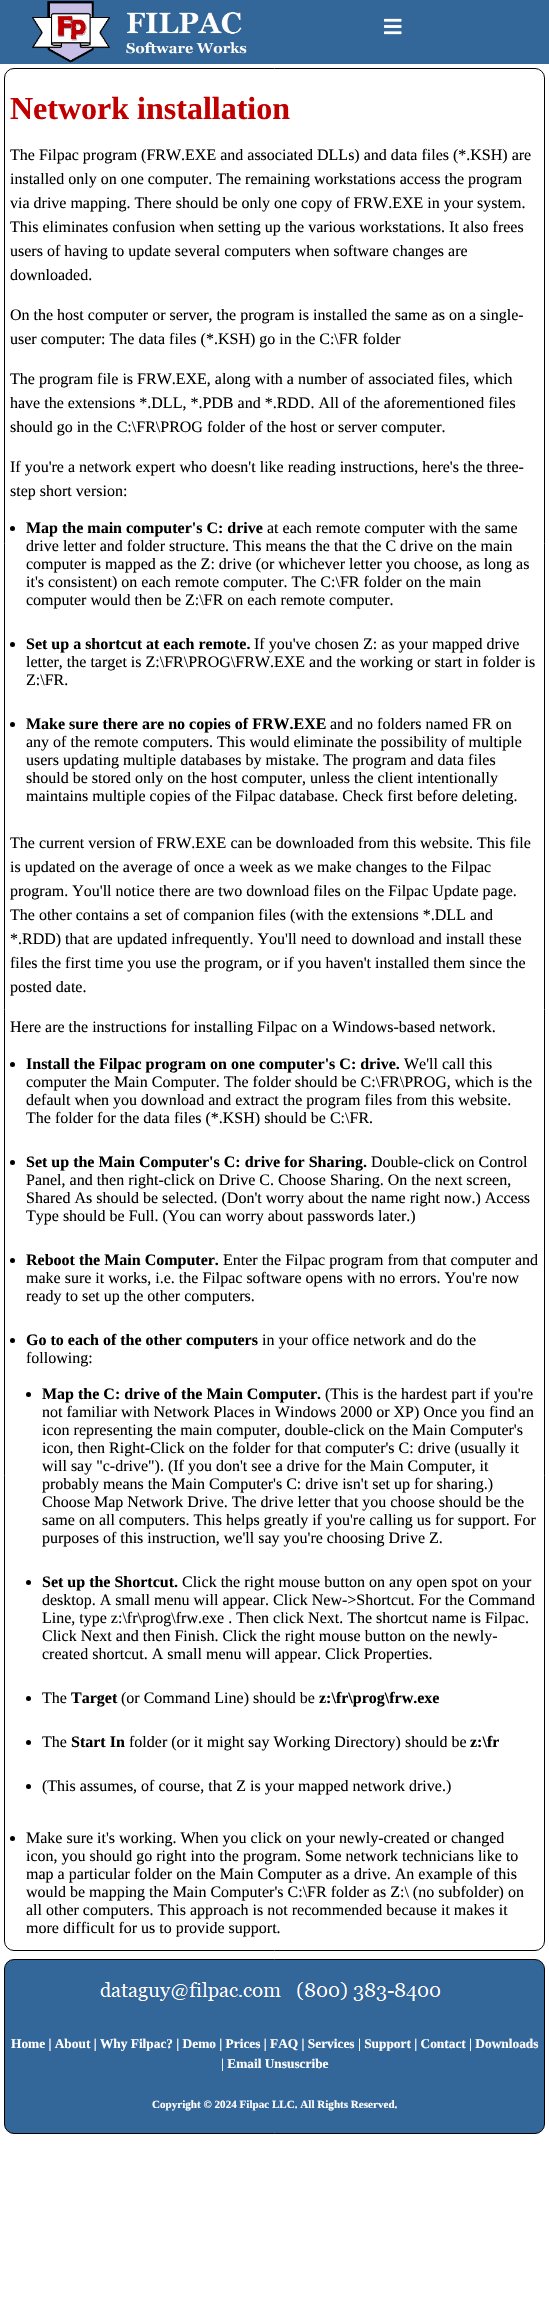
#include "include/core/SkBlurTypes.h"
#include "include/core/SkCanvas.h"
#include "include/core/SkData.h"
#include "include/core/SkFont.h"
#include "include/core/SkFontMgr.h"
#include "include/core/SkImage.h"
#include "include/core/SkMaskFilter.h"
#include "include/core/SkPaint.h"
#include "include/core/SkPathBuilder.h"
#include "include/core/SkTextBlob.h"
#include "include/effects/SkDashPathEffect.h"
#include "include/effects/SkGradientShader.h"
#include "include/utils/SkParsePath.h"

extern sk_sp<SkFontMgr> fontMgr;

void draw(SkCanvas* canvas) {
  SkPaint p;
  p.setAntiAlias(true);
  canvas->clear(SK_ColorWHITE);
  p.setColor(SkColorSetRGB(51, 102, 153));
  canvas->drawRect(SkRect::MakeLTRB(0, 0, 549, 64), p);
  canvas->drawImageRect(SkImages::DeferredFromEncodedData(SkData::MakeFromFileName("images/1.png")), SkRect::MakeLTRB(32, 0, 247, 63), SkSamplingOptions());
  canvas->drawImageRect(SkImages::DeferredFromEncodedData(SkData::MakeFromFileName("images/2.png")), SkRect::MakeLTRB(384, 18, 402, 35), SkSamplingOptions());
  p.setStyle(SkPaint::kStroke_Style);
  p.setStrokeWidth(1);
  p.setColor(SK_ColorBLACK);
  canvas->drawRoundRect(SkRect::MakeLTRB(4.5f, 68.5f, 544.5f, 1950.5f), 9.5f, 9.5f, p);
  p.setStyle(SkPaint::kFill_Style);
  canvas->drawCircle(12.5f, 528.5f, 2.5f, p);
  canvas->drawCircle(12.5f, 644.5f, 2.5f, p);
  canvas->drawCircle(12.5f, 724.5f, 2.5f, p);
  canvas->drawCircle(12.5f, 1064.5f, 2.5f, p);
  canvas->drawCircle(12.5f, 1162.5f, 2.5f, p);
  canvas->drawCircle(12.5f, 1260.5f, 2.5f, p);
  canvas->drawCircle(12.5f, 1340.5f, 2.5f, p);
  canvas->drawCircle(28.5f, 1394.5f, 2.5f, p);
  canvas->drawCircle(28.5f, 1582.5f, 2.5f, p);
  canvas->drawCircle(28.5f, 1698.5f, 2.5f, p);
  canvas->drawCircle(28.5f, 1742.5f, 2.5f, p);
  canvas->drawCircle(28.5f, 1786.5f, 2.5f, p);
  canvas->drawCircle(12.5f, 1838.5f, 2.5f, p);
  p.setColor(SkColorSetRGB(51, 102, 153));
  canvas->drawRoundRect(SkRect::MakeLTRB(4.5f, 1959.5f, 544.5f, 2133.5f), 9.5f, 9.5f, p);
  p.setStyle(SkPaint::kStroke_Style);
  p.setColor(SK_ColorBLACK);
  canvas->drawRoundRect(SkRect::MakeLTRB(4.5f, 1959.5f, 544.5f, 2133.5f), 9.5f, 9.5f, p);
  canvas->drawImageRect(SkImages::DeferredFromEncodedData(SkData::MakeFromFileName("images/3.png")), SkRect::MakeLTRB(100, 1982, 441, 2001), SkSamplingOptions());
  SkFont font1(fontMgr->matchFamilyStyle("Liberation Serif", SkFontStyle::Bold()), 32);
  font1.setSubpixel(true);
  p.setStyle(SkPaint::kFill_Style);
  p.setColor(SkColorSetRGB(192, 0, 0));
  canvas->drawString("Network installation", 10, 119, font1, p);
  SkFont font2(fontMgr->matchFamilyStyle("Liberation Serif", SkFontStyle::Normal()), 16);
  font2.setSubpixel(true);
  p.setColor(SK_ColorBLACK);
  canvas->drawString("The Filpac program (FRW.EXE and associated DLLs) and data files (*.KSH) are", 10, 160, font2, p);
  canvas->drawString("installed only on one computer. The remaining workstations access the program", 10, 184, font2, p);
  canvas->drawString("via drive mapping. There should be only one copy of FRW.EXE in your system.", 10, 208, font2, p);
  canvas->drawString("This eliminates confusion when setting up the various workstations. It also frees", 10, 232, font2, p);
  canvas->drawString("users of having to update several computers when software changes are", 10, 256, font2, p);
  canvas->drawString("downloaded.", 10, 280, font2, p);
  canvas->drawString("On the host computer or server, the program is installed the same as on a single-", 10, 320, font2, p);
  canvas->drawString("user computer: The data files (*.KSH) go in the C:\\FR folder", 10, 344, font2, p);
  canvas->drawString("The program file is FRW.EXE, along with a number of associated files, which", 10, 384, font2, p);
  canvas->drawString("have the extensions *.DLL, *.PDB and *.RDD. All of the aforementioned files", 10, 408, font2, p);
  canvas->drawString("should go in the C:\\FR\\PROG folder of the host or server computer.", 10, 432, font2, p);
  canvas->drawString("If you're a network expert who doesn't like reading instructions, here's the three-", 10, 472, font2, p);
  canvas->drawString("step short version:", 10, 496, font2, p);
  SkFont font3(fontMgr->matchFamilyStyle("Liberation Serif", SkFontStyle::Bold()), 16);
  font3.setSubpixel(true);
  canvas->drawString("Map the main computer's C: drive", 26, 533, font3, p);
  canvas->drawString("at each remote computer with the same", 267, 533, font2, p);
  canvas->drawString("drive letter and folder structure. This means the that the C drive on the main", 26, 551, font2, p);
  canvas->drawString("computer is mapped as the Z: drive (or whichever letter you choose, as long as", 26, 569, font2, p);
  canvas->drawString("it's consistent) on each remote computer. The C:\\FR folder on the main", 26, 587, font2, p);
  canvas->drawString("computer would then be Z:\\FR on each remote computer.", 26, 605, font2, p);
  canvas->drawString("Set up a shortcut at each remote.", 26, 649, font3, p);
  canvas->drawString("If you've chosen Z: as your mapped drive", 254, 649, font2, p);
  canvas->drawString("letter, the target is Z:\\FR\\PROG\\FRW.EXE and the working or start in folder is", 26, 667, font2, p);
  canvas->drawString("Z:\\FR.", 26, 685, font2, p);
  canvas->drawString("Make sure there are no copies of FRW.EXE", 26, 729, font3, p);
  canvas->drawString("and no folders named FR on", 330, 729, font2, p);
  canvas->drawString("any of the remote computers. This would eliminate the possibility of multiple", 26, 747, font2, p);
  canvas->drawString("users updating multiple databases by mistake. The program and data files", 26, 765, font2, p);
  canvas->drawString("should be stored only on the host computer, unless the client intentionally", 26, 783, font2, p);
  canvas->drawString("maintains multiple copies of the Filpac database. Check first before deleting.", 26, 801, font2, p);
  canvas->drawString("The current version of FRW.EXE can be downloaded from this website. This file", 10, 848, font2, p);
  canvas->drawString("is updated on the average of once a week as we make changes to the Filpac", 10, 872, font2, p);
  canvas->drawString("program. You'll notice there are two download files on the Filpac Update page.", 10, 896, font2, p);
  canvas->drawString("The other contains a set of companion files (with the extensions *.DLL and", 10, 920, font2, p);
  canvas->drawString("*.RDD) that are updated infrequently. You'll need to download and install these", 10, 944, font2, p);
  canvas->drawString("files the first time you use the program, or if you haven't installed them since the", 10, 968, font2, p);
  canvas->drawString("posted date.", 10, 992, font2, p);
  canvas->drawString("Here are the instructions for installing Filpac on a Windows-based network.", 10, 1032, font2, p);
  canvas->drawString("Install the Filpac program on one computer's C: drive.", 26, 1069, font3, p);
  canvas->drawString("We'll call this", 404, 1069, font2, p);
  canvas->drawString("computer the Main Computer. The folder should be C:\\FR\\PROG, which is the", 26, 1087, font2, p);
  canvas->drawString("default when you download and extract the program files from this website.", 26, 1105, font2, p);
  canvas->drawString("The folder for the data files (*.KSH) should be C:\\FR.", 26, 1123, font2, p);
  canvas->drawString("Set up the Main Computer's C: drive for Sharing.", 26, 1167, font3, p);
  canvas->drawString("Double-click on Control", 371, 1167, font2, p);
  canvas->drawString("Panel, and then right-click on Drive C. Choose Sharing. On the next screen,", 26, 1185, font2, p);
  canvas->drawString("Shared As should be selected. (Don't worry about the name right now.) Access", 26, 1203, font2, p);
  canvas->drawString("Type should be Full. (You can worry about passwords later.)", 26, 1221, font2, p);
  canvas->drawString("Reboot the Main Computer.", 26, 1265, font3, p);
  canvas->drawString("Enter the Filpac program from that computer and", 223, 1265, font2, p);
  canvas->drawString("make sure it works, i.e. the Filpac software opens with no errors. You're now", 26, 1283, font2, p);
  canvas->drawString("ready to set up the other computers.", 26, 1301, font2, p);
  canvas->drawString("Go to each of the other computers", 26, 1345, font3, p);
  canvas->drawString("in your office network and do the", 262, 1345, font2, p);
  canvas->drawString("following:", 26, 1363, font2, p);
  canvas->drawString("Map the C: drive of the Main Computer.", 42, 1399, font3, p);
  canvas->drawString("(This is the hardest part if you're", 325, 1399, font2, p);
  canvas->drawString("not familiar with Network Places in Windows 2000 or XP) Once you find an", 42, 1417, font2, p);
  canvas->drawString("icon representing the main computer, double-click on the Main Computer's", 42, 1435, font2, p);
  canvas->drawString("icon, then Right-Click on the folder for that computer's C: drive (usually it", 42, 1453, font2, p);
  canvas->drawString("will say \"c-drive\"). (If you don't see a drive for the Main Computer, it", 42, 1471, font2, p);
  canvas->drawString("probably means the Main Computer's C: drive isn't set up for sharing.)", 42, 1489, font2, p);
  canvas->drawString("Choose Map Network Drive. The drive letter that you choose should be the", 42, 1507, font2, p);
  canvas->drawString("same on all computers. This helps greatly if you're calling us for support. For", 42, 1525, font2, p);
  canvas->drawString("purposes of this instruction, we'll say you're choosing Drive Z.", 42, 1543, font2, p);
  canvas->drawString("Set up the Shortcut.", 42, 1587, font3, p);
  canvas->drawString("Click the right mouse button on any open spot on your", 182, 1587, font2, p);
  canvas->drawString("desktop. A small menu will appear. Click New->Shortcut. For the Command", 42, 1605, font2, p);
  canvas->drawString("Line, type z:\\fr\\prog\\frw.exe . Then click Next. The shortcut name is Filpac.", 42, 1623, font2, p);
  canvas->drawString("Click Next and then Finish. Click the right mouse button on the newly-", 42, 1641, font2, p);
  canvas->drawString("created shortcut. A small menu will appear. Click Properties.", 42, 1659, font2, p);
  canvas->drawString("The", 42, 1703, font2, p);
  canvas->drawString("Target", 71, 1703, font3, p);
  canvas->drawString("(or Command Line) should be", 121, 1703, font2, p);
  canvas->drawString("z:\\fr\\prog\\frw.exe", 319, 1703, font3, p);
  canvas->drawString("The", 42, 1747, font2, p);
  canvas->drawString("Start In", 71, 1747, font3, p);
  canvas->drawString("folder (or it might say Working Directory) should be", 129, 1747, font2, p);
  canvas->drawString("z:\\fr", 470, 1747, font3, p);
  canvas->drawString("(This assumes, of course, that Z is your mapped network drive.)", 42, 1791, font2, p);
  canvas->drawString("Make sure it's working. When you click on your newly-created or changed", 26, 1843, font2, p);
  canvas->drawString("icon, you should go right into the program. Some network technicians like to", 26, 1861, font2, p);
  canvas->drawString("map a particular folder on the Main Computer as a drive. An example of this", 26, 1879, font2, p);
  canvas->drawString("would be mapping the Main Computer's C:\\FR folder as Z:\\ (no subfolder) on", 26, 1897, font2, p);
  canvas->drawString("all other computers. This approach is not recommended because it makes it", 26, 1915, font2, p);
  canvas->drawString("more difficult for us to provide support.", 26, 1933, font2, p);
  SkFont font4(fontMgr->matchFamilyStyle("Liberation Serif", SkFontStyle::Bold()), 13.35f);
  font4.setSubpixel(true);
  p.setColor(SK_ColorWHITE);
  canvas->drawString("Home | About | Why Filpac? | Demo | Prices | FAQ | Services | Support | Contact | Downloads", 11, 2048, font4, p);
  canvas->drawString("| Email Unsuscribe", 221, 2068, font4, p);
  SkFont font5(fontMgr->matchFamilyStyle("Liberation Serif", SkFontStyle::Bold()), 11.1f);
  font5.setSubpixel(true);
  canvas->drawString("Copyright © 2024 Filpac LLC. All Rights Reserved.", 152, 2108, font5, p);
}
